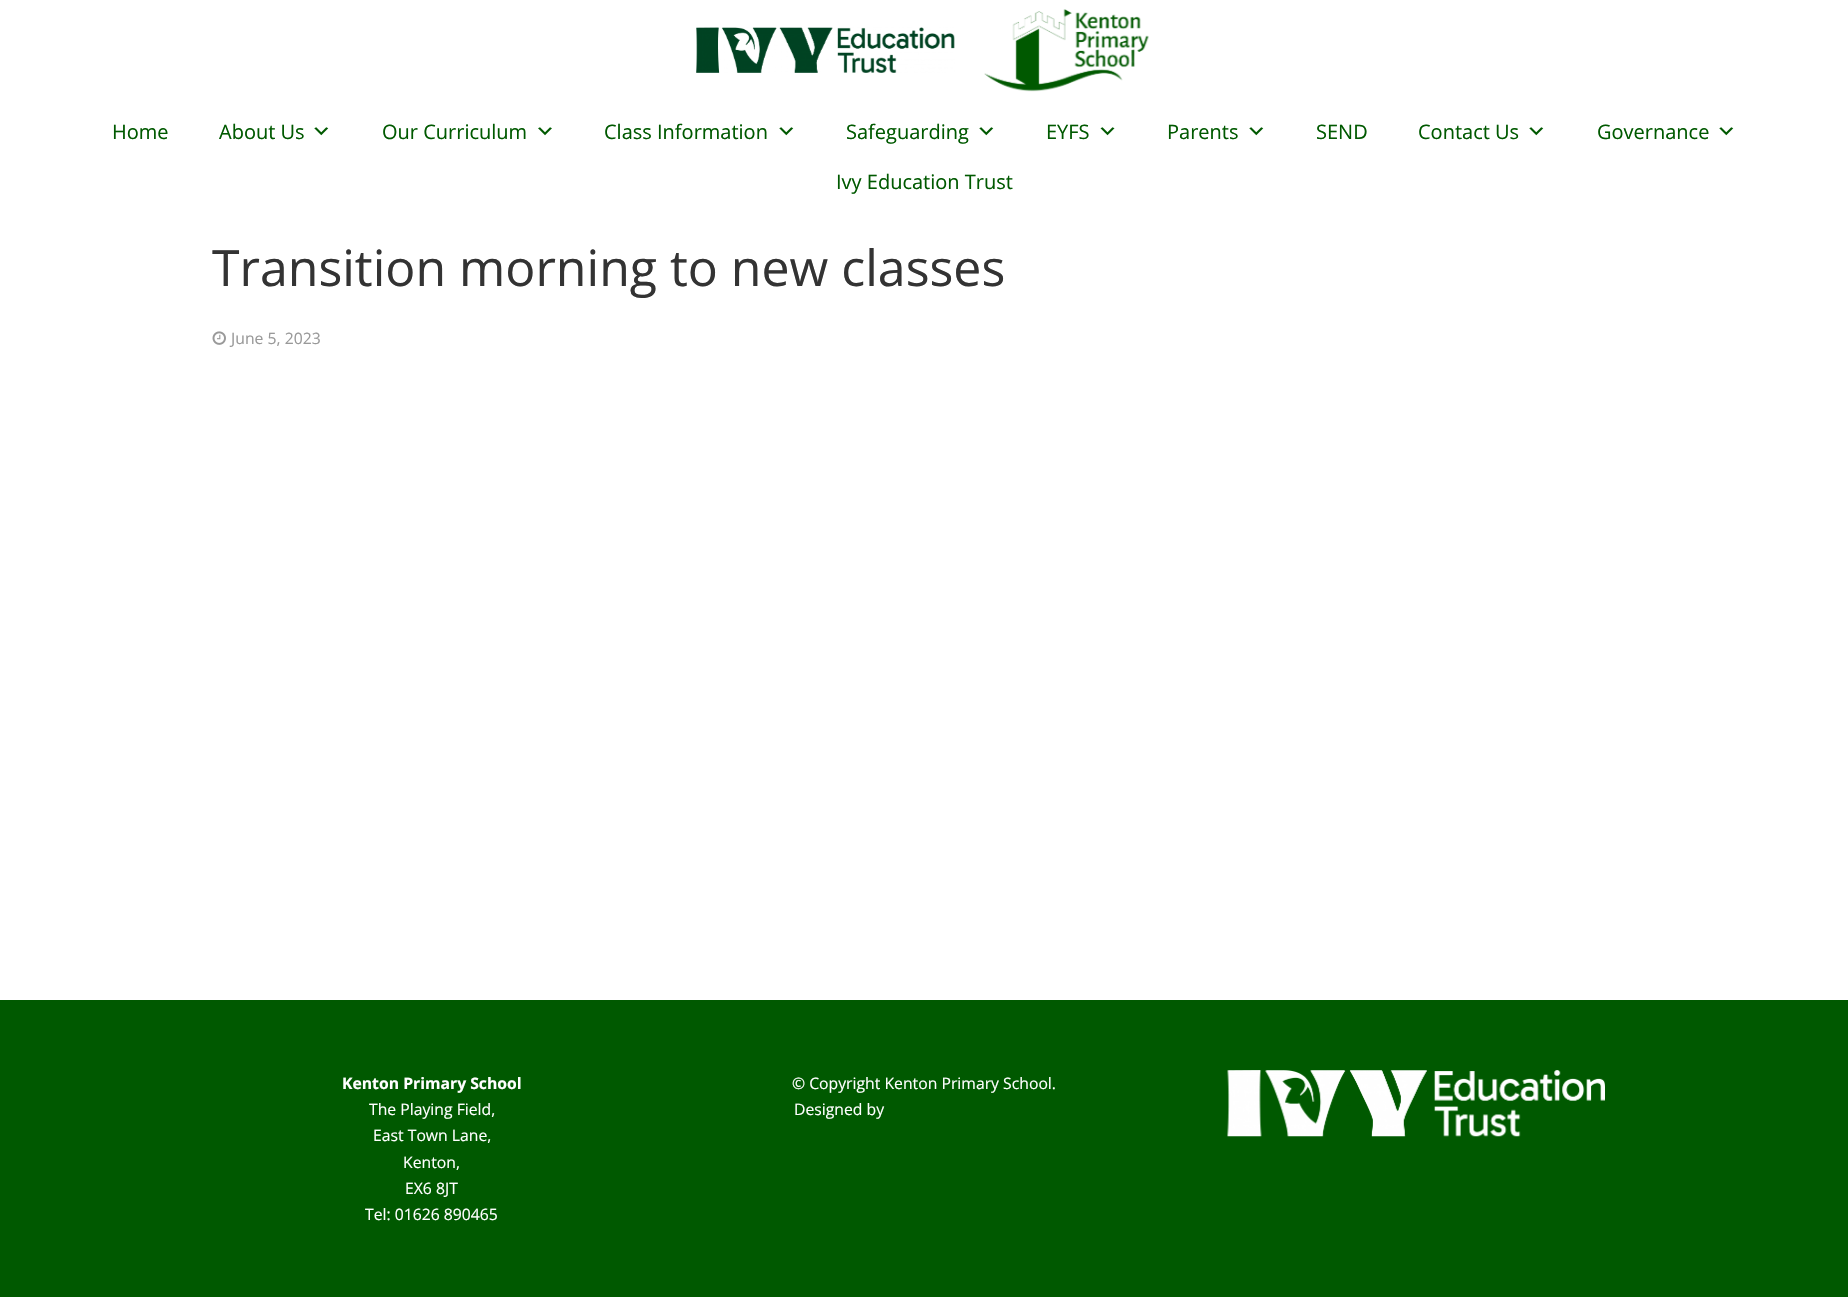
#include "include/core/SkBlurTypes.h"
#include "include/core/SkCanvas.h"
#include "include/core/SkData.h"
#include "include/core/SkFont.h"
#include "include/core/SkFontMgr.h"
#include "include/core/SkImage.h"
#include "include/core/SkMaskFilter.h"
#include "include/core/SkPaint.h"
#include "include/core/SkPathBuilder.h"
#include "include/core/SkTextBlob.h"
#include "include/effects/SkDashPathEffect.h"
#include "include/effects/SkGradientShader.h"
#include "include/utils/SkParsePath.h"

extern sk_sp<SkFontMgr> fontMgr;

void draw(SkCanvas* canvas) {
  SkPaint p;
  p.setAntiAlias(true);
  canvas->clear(SK_ColorWHITE);
  canvas->drawImageRect(SkImages::DeferredFromEncodedData(SkData::MakeFromFileName("images/1.png")), SkRect::MakeLTRB(696, 27, 955, 73), SkSamplingOptions());
  canvas->drawImageRect(SkImages::DeferredFromEncodedData(SkData::MakeFromFileName("images/2.png")), SkRect::MakeLTRB(984, 9, 1149, 92), SkSamplingOptions());
  canvas->drawImageRect(SkImages::DeferredFromEncodedData(SkData::MakeFromFileName("images/3.png")), SkRect::MakeLTRB(314, 127, 329, 136), SkSamplingOptions());
  canvas->drawImageRect(SkImages::DeferredFromEncodedData(SkData::MakeFromFileName("images/4.png")), SkRect::MakeLTRB(538, 127, 552, 136), SkSamplingOptions());
  canvas->drawImageRect(SkImages::DeferredFromEncodedData(SkData::MakeFromFileName("images/3.png")), SkRect::MakeLTRB(779, 127, 794, 136), SkSamplingOptions());
  canvas->drawImageRect(SkImages::DeferredFromEncodedData(SkData::MakeFromFileName("images/3.png")), SkRect::MakeLTRB(979, 127, 994, 136), SkSamplingOptions());
  canvas->drawImageRect(SkImages::DeferredFromEncodedData(SkData::MakeFromFileName("images/5.png")), SkRect::MakeLTRB(1100, 127, 1115, 136), SkSamplingOptions());
  canvas->drawImageRect(SkImages::DeferredFromEncodedData(SkData::MakeFromFileName("images/3.png")), SkRect::MakeLTRB(1249, 127, 1264, 136), SkSamplingOptions());
  canvas->drawImageRect(SkImages::DeferredFromEncodedData(SkData::MakeFromFileName("images/3.png")), SkRect::MakeLTRB(1529, 127, 1544, 136), SkSamplingOptions());
  canvas->drawImageRect(SkImages::DeferredFromEncodedData(SkData::MakeFromFileName("images/3.png")), SkRect::MakeLTRB(1719, 127, 1734, 136), SkSamplingOptions());
  canvas->drawImageRect(SkImages::DeferredFromEncodedData(SkData::MakeFromFileName("images/6.png")), SkRect::MakeLTRB(212, 331, 226, 345), SkSamplingOptions());
  p.setColor(SkColorSetRGB(0, 89, 0));
  canvas->drawRect(SkRect::MakeLTRB(0, 1000, 1848, 1297), p);
  canvas->drawImageRect(SkImages::DeferredFromEncodedData(SkData::MakeFromFileName("images/7.png")), SkRect::MakeLTRB(1227, 1070, 1605, 1137), SkSamplingOptions());
  SkFont font1(fontMgr->matchFamilyStyle("Open Sans", SkFontStyle::Normal()), 20);
  font1.setSubpixel(true);
  canvas->drawString("Home", 112, 139, font1, p);
  canvas->drawString("About Us", 219, 139, font1, p);
  canvas->drawString("Our Curriculum", 382, 139, font1, p);
  canvas->drawString("Class Information", 604, 139, font1, p);
  canvas->drawString("Safeguarding", 846, 139, font1, p);
  canvas->drawString("EYFS", 1046, 139, font1, p);
  canvas->drawString("Parents", 1167, 139, font1, p);
  canvas->drawString("SEND", 1316, 139, font1, p);
  canvas->drawString("Contact Us", 1418, 139, font1, p);
  canvas->drawString("Governance", 1597, 139, font1, p);
  canvas->drawString("Ivy Education Trust", 836, 189, font1, p);
  SkFont font2(fontMgr->matchFamilyStyle("Open Sans", SkFontStyle::Normal()), 50);
  font2.setSubpixel(true);
  p.setColor(SkColorSetRGB(51, 51, 51));
  canvas->drawString("Transition morning to new classes", 212, 286, font2, p);
  SkFont font3(fontMgr->matchFamilyStyle("Open Sans", SkFontStyle::Normal()), 15.75f);
  font3.setSubpixel(true);
  p.setColor(SkColorSetRGB(153, 153, 153));
  canvas->drawString("June 5, 2023", 231, 344, font3, p);
  SkFont font4(fontMgr->matchFamilyStyle("Open Sans", SkFontStyle::Bold()), 15.75f);
  font4.setSubpixel(true);
  p.setColor(SK_ColorWHITE);
  canvas->drawString("Kenton Primary School", 342, 1089, font4, p);
  canvas->drawString("The Playing Field,", 369, 1115, font3, p);
  canvas->drawString("East Town Lane,", 373, 1141, font3, p);
  canvas->drawString("Kenton,", 403, 1168, font3, p);
  canvas->drawString("EX6 8JT", 405, 1194, font3, p);
  canvas->drawString("Tel: 01626 890465", 365, 1220, font3, p);
  canvas->drawString("© Copyright Kenton Primary School.", 792, 1089, font3, p);
  canvas->drawString("Designed by", 794, 1115, font3, p);
}
